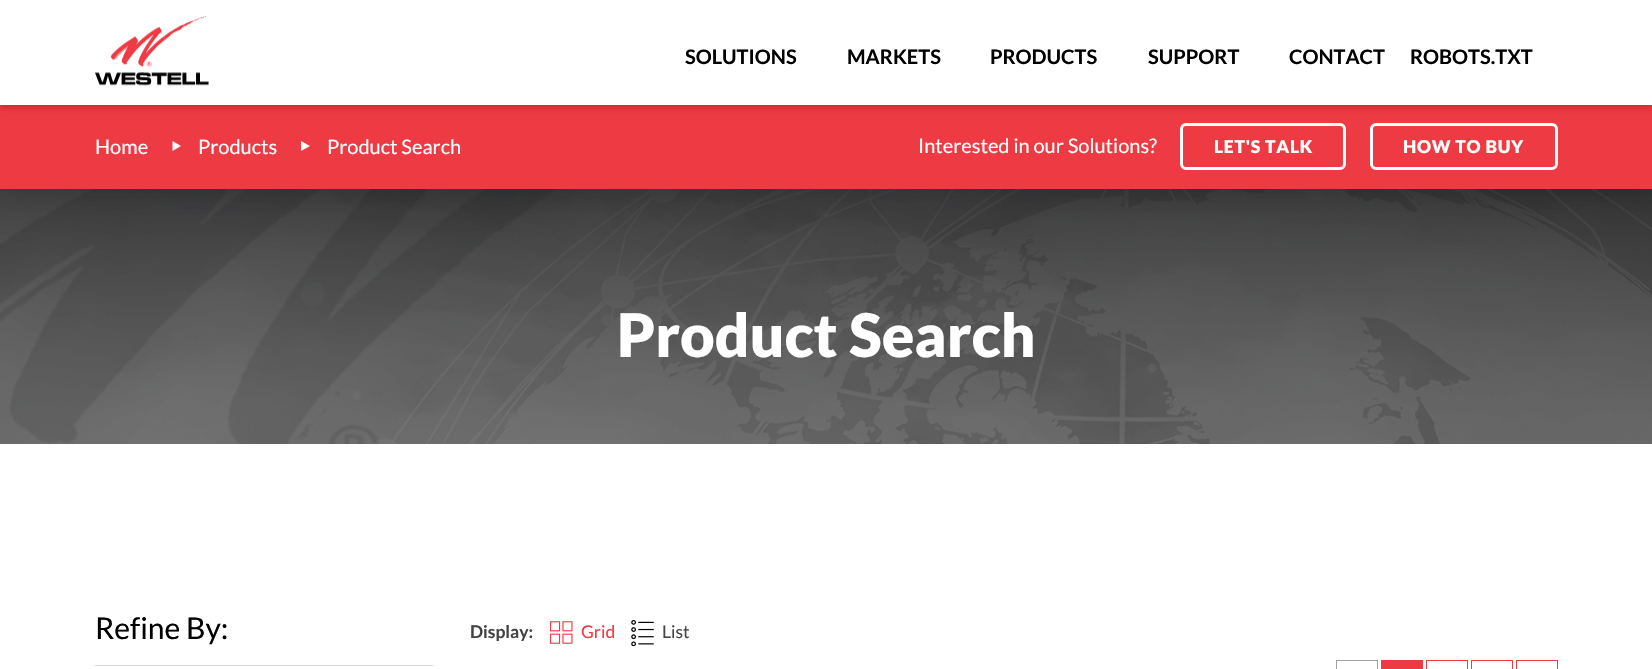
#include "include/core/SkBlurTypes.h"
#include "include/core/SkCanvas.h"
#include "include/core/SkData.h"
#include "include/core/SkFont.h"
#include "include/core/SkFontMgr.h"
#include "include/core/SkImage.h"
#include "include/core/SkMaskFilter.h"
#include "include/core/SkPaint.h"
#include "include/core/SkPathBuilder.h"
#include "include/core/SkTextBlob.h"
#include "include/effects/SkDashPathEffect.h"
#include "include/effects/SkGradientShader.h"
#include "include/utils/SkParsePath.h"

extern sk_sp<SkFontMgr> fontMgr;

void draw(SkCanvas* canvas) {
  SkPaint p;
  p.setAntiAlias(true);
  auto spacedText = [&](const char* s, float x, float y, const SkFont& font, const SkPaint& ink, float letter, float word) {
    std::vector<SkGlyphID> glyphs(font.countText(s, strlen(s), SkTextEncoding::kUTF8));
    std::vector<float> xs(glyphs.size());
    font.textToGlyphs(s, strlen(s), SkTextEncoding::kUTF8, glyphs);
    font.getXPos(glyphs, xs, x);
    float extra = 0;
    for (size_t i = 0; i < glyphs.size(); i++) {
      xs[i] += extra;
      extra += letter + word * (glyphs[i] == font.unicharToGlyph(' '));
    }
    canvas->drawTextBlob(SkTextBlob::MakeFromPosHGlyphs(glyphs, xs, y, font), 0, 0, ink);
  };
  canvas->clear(SK_ColorWHITE);
  canvas->drawImageRect(SkImages::DeferredFromEncodedData(SkData::MakeFromFileName("images/2.png")), SkRect::MakeLTRB(0, 189, 1652, 444), SkSamplingOptions());
  p.setColor(SkColorSetARGB(26, 0, 0, 0));
  p.setMaskFilter(SkMaskFilter::MakeBlur(kNormal_SkBlurStyle, 9.5f));
  canvas->drawRect(SkRect::MakeLTRB(0, 110, 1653, 195), p);
  p.setMaskFilter(nullptr);
  p.setColor(SkColorSetRGB(238, 58, 67));
  canvas->drawRect(SkRect::MakeLTRB(0, 105, 1652, 189), p);
  p.setColor(SkColorSetARGB(51, 0, 0, 0));
  p.setMaskFilter(SkMaskFilter::MakeBlur(kNormal_SkBlurStyle, 3));
  canvas->drawRect(SkRect::MakeLTRB(0, 3, 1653, 108), p);
  p.setMaskFilter(nullptr);
  p.setColor(SK_ColorWHITE);
  canvas->drawRect(SkRect::MakeLTRB(0, 0, 1652, 105), p);
  canvas->drawImageRect(SkImages::DeferredFromEncodedData(SkData::MakeFromFileName("images/1.png")), SkRect::MakeLTRB(95, 16, 209, 86), SkSamplingOptions());
  canvas->drawPath(SkPathBuilder().moveTo(172.5f, 151).lineTo(172.5f, 141).lineTo(181, 146).close().detach(), p);
  canvas->drawPath(SkPathBuilder().moveTo(301, 151).lineTo(301, 141).lineTo(310, 146).close().detach(), p);
  p.setStyle(SkPaint::kStroke_Style);
  p.setStrokeWidth(3);
  canvas->drawRoundRect(SkRect::MakeLTRB(1181.5f, 124.5f, 1344.5f, 168.5f), 4.5f, 4.5f, p);
  canvas->drawRoundRect(SkRect::MakeLTRB(1371.5f, 124.5f, 1556.5f, 168.5f), 4.5f, 4.5f, p);
  p.setStyle(SkPaint::kFill_Style);
  p.setColor(SkColorSetRGB(215, 215, 215));
  canvas->drawRect(SkRect::MakeLTRB(95, 665, 433, 666), p);
  canvas->drawImageRect(SkImages::DeferredFromEncodedData(SkData::MakeFromFileName("images/3.png")), SkRect::MakeLTRB(550, 621, 573, 644), SkSamplingOptions());
  canvas->drawImageRect(SkImages::DeferredFromEncodedData(SkData::MakeFromFileName("images/4.png")), SkRect::MakeLTRB(631, 620, 654, 646), SkSamplingOptions());
  p.setStyle(SkPaint::kStroke_Style);
  p.setStrokeWidth(1);
  p.setColor(SkColorSetRGB(161, 161, 161));
  canvas->drawRect(SkRect::MakeLTRB(1336.5f, 660.5f, 1377.5f, 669.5f), p);
  p.setStyle(SkPaint::kFill_Style);
  p.setColor(SkColorSetRGB(238, 58, 67));
  canvas->drawRect(SkRect::MakeLTRB(1381, 660, 1423, 669), p);
  p.setStyle(SkPaint::kStroke_Style);
  canvas->drawRect(SkRect::MakeLTRB(1426.5f, 660.5f, 1467.5f, 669.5f), p);
  canvas->drawRect(SkRect::MakeLTRB(1471.5f, 660.5f, 1512.5f, 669.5f), p);
  canvas->drawRect(SkRect::MakeLTRB(1516.5f, 660.5f, 1557.5f, 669.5f), p);
  SkFont font1(fontMgr->matchFamilyStyle("Lato", SkFontStyle::Bold()), 20);
  font1.setSubpixel(true);
  p.setStyle(SkPaint::kFill_Style);
  p.setColor(SK_ColorBLACK);
  canvas->drawString("SOLUTIONS", 685, 64, font1, p);
  canvas->drawString("MARKETS", 847, 64, font1, p);
  canvas->drawString("PRODUCTS", 990, 64, font1, p);
  canvas->drawString("SUPPORT", 1148, 64, font1, p);
  canvas->drawString("CONTACT", 1289, 64, font1, p);
  canvas->drawString("ROBOTS.TXT", 1410, 64, font1, p);
  SkFont font2(fontMgr->matchFamilyStyle("Lato", SkFontStyle::Normal()), 20);
  font2.setSubpixel(true);
  p.setColor(SK_ColorWHITE);
  canvas->drawString("Home", 95, 154, font2, p);
  canvas->drawString("Products", 198, 154, font2, p);
  canvas->drawString("Product Search", 327, 154, font2, p);
  canvas->drawString("Interested in our Solutions?", 918, 153, font2, p);
  SkFont font3(fontMgr->matchFamilyStyle("Lato", SkFontStyle(900, SkFontStyle::kNormal_Width, SkFontStyle::kUpright_Slant)), 17.5f);
  font3.setSubpixel(true);
  spacedText("LET'S TALK", 1214, 153, font3, p, 0.75f, 0);
  spacedText("HOW TO BUY", 1403, 153, font3, p, 0.75f, 0);
  SkFont font4(fontMgr->matchFamilyStyle("Lato", SkFontStyle(900, SkFontStyle::kNormal_Width, SkFontStyle::kUpright_Slant)), 60);
  font4.setSubpixel(true);
  canvas->drawString("Product Search", 617, 357, font4, p);
  SkFont font5(fontMgr->matchFamilyStyle("Lato", SkFontStyle::Normal()), 30);
  font5.setSubpixel(true);
  p.setColor(SK_ColorBLACK);
  canvas->drawString("Refine By:", 95, 639, font5, p);
  SkFont font6(fontMgr->matchFamilyStyle("Lato", SkFontStyle::Bold()), 17.5f);
  font6.setSubpixel(true);
  p.setColor(SkColorSetRGB(68, 68, 68));
  canvas->drawString("Display:", 470, 638, font6, p);
  SkFont font7(fontMgr->matchFamilyStyle("Lato", SkFontStyle::Normal()), 17.5f);
  font7.setSubpixel(true);
  p.setColor(SkColorSetRGB(238, 58, 67));
  canvas->drawString("Grid", 581, 638, font7, p);
  p.setColor(SkColorSetRGB(68, 68, 68));
  canvas->drawString("List", 662, 638, font7, p);
}
